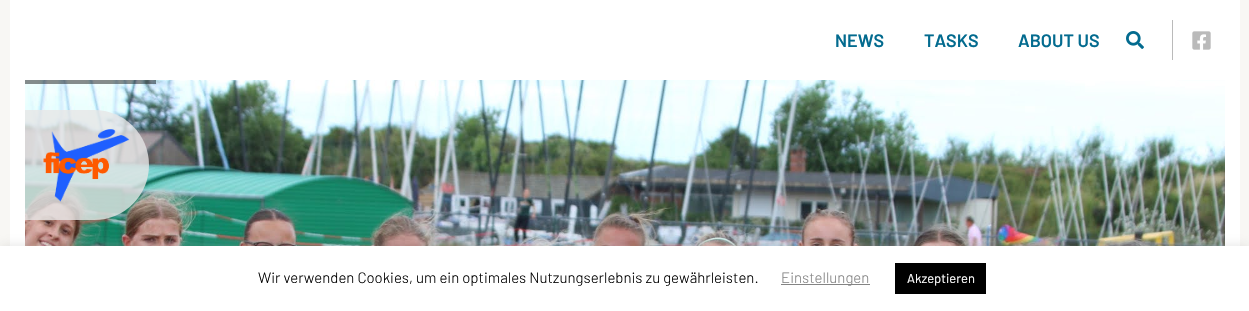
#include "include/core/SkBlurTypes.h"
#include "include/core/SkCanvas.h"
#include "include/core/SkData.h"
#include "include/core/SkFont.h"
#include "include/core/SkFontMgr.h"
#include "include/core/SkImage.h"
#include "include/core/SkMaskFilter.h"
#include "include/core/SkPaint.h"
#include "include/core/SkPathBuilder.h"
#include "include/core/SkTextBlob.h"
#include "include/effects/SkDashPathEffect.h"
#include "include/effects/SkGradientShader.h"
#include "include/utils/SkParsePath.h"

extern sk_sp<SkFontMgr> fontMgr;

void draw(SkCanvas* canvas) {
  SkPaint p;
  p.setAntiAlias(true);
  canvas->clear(SkColorSetRGB(248, 247, 244));
  p.setColor(SK_ColorWHITE);
  canvas->drawRect(SkRect::MakeLTRB(10, 0, 1240, 246), p);
  canvas->drawImageRect(SkImages::DeferredFromEncodedData(SkData::MakeFromFileName("images/1.png")), SkRect::MakeLTRB(1126, 31, 1144, 49), SkSamplingOptions());
  p.setColor(SkColorSetRGB(186, 186, 186));
  canvas->drawRect(SkRect::MakeLTRB(1172, 20, 1173, 60), p);
  canvas->drawImageRect(SkImages::DeferredFromEncodedData(SkData::MakeFromFileName("images/2.png")), SkRect::MakeLTRB(1192, 31, 1211, 50), SkSamplingOptions());
  canvas->drawImageRect(SkImages::DeferredFromEncodedData(SkData::MakeFromFileName("images/3.png")), SkRect::MakeLTRB(25, 80, 1225, 246), SkSamplingOptions());
  p.setColor(SkColorSetARGB(115, 0, 0, 0));
  canvas->drawRect(SkRect::MakeLTRB(25, 80, 156, 84), p);
  p.setColor(SkColorSetARGB(204, 230, 230, 230));
  canvas->drawPath(SkPathBuilder().moveTo(25, 110).lineTo(94, 110).cubicTo(124.5f, 110, 149, 134.5f, 149, 165).cubicTo(149, 195.5f, 124.5f, 220, 94, 220).lineTo(25, 220).close().detach(), p);
  canvas->drawImageRect(SkImages::DeferredFromEncodedData(SkData::MakeFromFileName("images/4.png")), SkRect::MakeLTRB(43, 129, 130, 202), SkSamplingOptions());
  p.setColor(SkColorSetARGB(77, 172, 171, 171));
  p.setMaskFilter(SkMaskFilter::MakeBlur(kNormal_SkBlurStyle, 5));
  canvas->drawRect(SkRect::MakeLTRB(0, 245, 1249, 310), p);
  p.setMaskFilter(nullptr);
  p.setColor(SK_ColorWHITE);
  canvas->drawRect(SkRect::MakeLTRB(0, 246, 1249, 311), p);
  p.setColor(SkColorSetRGB(132, 132, 132));
  canvas->drawRect(SkRect::MakeLTRB(781, 284, 870, 285), p);
  p.setColor(SK_ColorBLACK);
  canvas->drawRect(SkRect::MakeLTRB(895, 263, 986, 294), p);
  SkFont font1(fontMgr->matchFamilyStyle("Barlow", SkFontStyle(600, SkFontStyle::kNormal_Width, SkFontStyle::kUpright_Slant)), 18);
  font1.setSubpixel(true);
  p.setColor(SkColorSetRGB(3, 107, 143));
  canvas->drawString("NEWS", 835, 47, font1, p);
  canvas->drawString("TASKS", 924, 47, font1, p);
  canvas->drawString("ABOUT US", 1018, 47, font1, p);
  SkFont font2(fontMgr->matchFamilyStyle("Barlow", SkFontStyle(300, SkFontStyle::kNormal_Width, SkFontStyle::kUpright_Slant)), 15);
  font2.setSubpixel(true);
  p.setColor(SK_ColorBLACK);
  canvas->drawString("Wir verwenden Cookies, um ein optimales Nutzungserlebnis zu gewährleisten.", 258, 283, font2, p);
  p.setColor(SkColorSetRGB(132, 132, 132));
  canvas->drawString("Einstellungen", 781, 283, font2, p);
  SkFont font3(fontMgr->matchFamilyStyle("Barlow", SkFontStyle::Normal()), 13);
  font3.setSubpixel(true);
  p.setColor(SK_ColorWHITE);
  canvas->drawString("Akzeptieren", 907, 283, font3, p);
}
